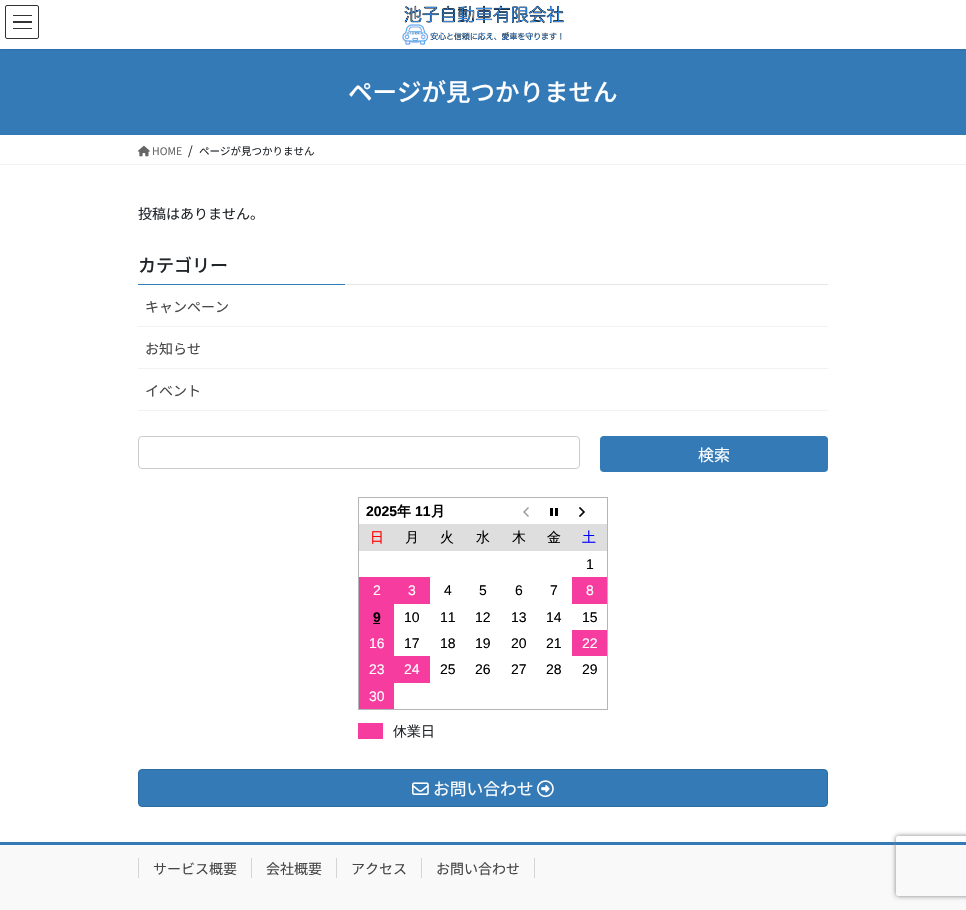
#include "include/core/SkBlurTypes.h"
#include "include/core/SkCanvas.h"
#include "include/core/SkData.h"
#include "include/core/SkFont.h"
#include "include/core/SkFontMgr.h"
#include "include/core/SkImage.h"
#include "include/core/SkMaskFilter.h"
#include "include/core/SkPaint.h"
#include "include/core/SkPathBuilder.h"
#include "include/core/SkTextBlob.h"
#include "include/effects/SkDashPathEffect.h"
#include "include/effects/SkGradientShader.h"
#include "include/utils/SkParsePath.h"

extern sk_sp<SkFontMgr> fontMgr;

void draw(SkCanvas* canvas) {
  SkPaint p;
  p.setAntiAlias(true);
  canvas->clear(SK_ColorWHITE);
  p.setColor(SkColorSetRGB(51, 122, 183));
  canvas->drawRect(SkRect::MakeLTRB(0, 49, 966, 135), p);
  canvas->save();
  canvas->clipRect(SkRect::MakeLTRB(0, 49, 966, 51));
  p.setColor(SkColorSetARGB(26, 0, 0, 0));
  p.setMaskFilter(SkMaskFilter::MakeBlur(kNormal_SkBlurStyle, 1.5f));
  canvas->drawRect(SkRect::MakeLTRB(0, 1, 966, 50), p);
  p.setMaskFilter(nullptr);
  canvas->restore();
  canvas->drawImageRect(SkImages::DeferredFromEncodedData(SkData::MakeFromFileName("images/1.png")), SkRect::MakeLTRB(402, 5, 564, 45), SkSamplingOptions());
  p.setColor(SkColorSetRGB(51, 51, 51));
  canvas->drawRect(SkRect::MakeLTRB(13, 15, 32, 16), p);
  canvas->drawRect(SkRect::MakeLTRB(13, 21, 32, 23), p);
  canvas->drawRect(SkRect::MakeLTRB(13, 28, 32, 29), p);
  p.setStyle(SkPaint::kStroke_Style);
  p.setStrokeWidth(1);
  canvas->drawRoundRect(SkRect::MakeLTRB(5.5f, 5.5f, 38.5f, 38.5f), 1.5f, 1.5f, p);
  p.setStyle(SkPaint::kFill_Style);
  p.setColor(SkColorSetRGB(242, 242, 242));
  canvas->drawRect(SkRect::MakeLTRB(0, 164, 966, 165), p);
  canvas->drawImageRect(SkImages::DeferredFromEncodedData(SkData::MakeFromFileName("images/2.png")), SkRect::MakeLTRB(138, 145, 150, 157), SkSamplingOptions());
  p.setColor(SkColorSetRGB(230, 230, 230));
  canvas->drawRect(SkRect::MakeLTRB(345, 284, 828, 285), p);
  p.setColor(SkColorSetRGB(51, 122, 183));
  canvas->drawRect(SkRect::MakeLTRB(138, 284, 345, 285), p);
  p.setColor(SkColorSetRGB(242, 242, 242));
  canvas->drawRect(SkRect::MakeLTRB(138, 326, 828, 327), p);
  canvas->drawRect(SkRect::MakeLTRB(138, 368, 828, 369), p);
  canvas->drawRect(SkRect::MakeLTRB(138, 410, 828, 411), p);
  p.setStyle(SkPaint::kStroke_Style);
  p.setColor(SkColorSetRGB(204, 204, 204));
  canvas->drawRoundRect(SkRect::MakeLTRB(138.5f, 436.5f, 579.5f, 468.5f), 3.5f, 3.5f, p);
  p.setStyle(SkPaint::kFill_Style);
  p.setColor(SkColorSetRGB(51, 122, 183));
  canvas->drawRoundRect(SkRect::MakeLTRB(600, 436, 828, 472), 4, 4, p);
  p.setColor(SkColorSetRGB(181, 181, 182));
  canvas->drawRect(SkRect::MakeLTRB(358, 497, 608, 498), p);
  canvas->drawRect(SkRect::MakeLTRB(607, 497, 608, 710), p);
  canvas->drawRect(SkRect::MakeLTRB(358, 709, 608, 710), p);
  canvas->drawRect(SkRect::MakeLTRB(358, 497, 359, 710), p);
  canvas->drawImageRect(SkImages::DeferredFromEncodedData(SkData::MakeFromFileName("images/3.png")), SkRect::MakeLTRB(523, 507, 529, 517), SkSamplingOptions());
  canvas->drawImageRect(SkImages::DeferredFromEncodedData(SkData::MakeFromFileName("images/4.png")), SkRect::MakeLTRB(550, 508, 558, 516), SkSamplingOptions());
  canvas->drawImageRect(SkImages::DeferredFromEncodedData(SkData::MakeFromFileName("images/5.png")), SkRect::MakeLTRB(579, 507, 585, 517), SkSamplingOptions());
  p.setColor(SkColorSetRGB(222, 222, 222));
  canvas->drawRect(SkRect::MakeLTRB(359, 524, 607, 551), p);
  p.setColor(SkColorSetRGB(246, 60, 159));
  canvas->drawRect(SkRect::MakeLTRB(359, 577, 430, 604), p);
  canvas->drawRect(SkRect::MakeLTRB(572, 577, 607, 604), p);
  canvas->drawRect(SkRect::MakeLTRB(359, 604, 394, 709), p);
  p.setColor(SK_ColorBLACK);
  canvas->drawRect(SkRect::MakeLTRB(373, 623, 380, 624), p);
  p.setColor(SkColorSetRGB(246, 60, 159));
  canvas->drawRect(SkRect::MakeLTRB(572, 630, 607, 656), p);
  canvas->drawRect(SkRect::MakeLTRB(394, 656, 430, 683), p);
  canvas->drawRect(SkRect::MakeLTRB(358, 723, 383, 739), p);
  p.setColor(SkColorSetRGB(51, 122, 183));
  canvas->drawRoundRect(SkRect::MakeLTRB(138.5f, 769.5f, 827.5f, 806.5f), 3.5f, 3.5f, p);
  p.setStyle(SkPaint::kStroke_Style);
  p.setColor(SkColorSetRGB(46, 109, 164));
  canvas->drawRoundRect(SkRect::MakeLTRB(138.5f, 769.5f, 827.5f, 806.5f), 3.5f, 3.5f, p);
  canvas->drawImageRect(SkImages::DeferredFromEncodedData(SkData::MakeFromFileName("images/6.png")), SkRect::MakeLTRB(412, 782, 429, 795), SkSamplingOptions());
  canvas->drawImageRect(SkImages::DeferredFromEncodedData(SkData::MakeFromFileName("images/7.png")), SkRect::MakeLTRB(537, 780, 554, 798), SkSamplingOptions());
  p.setStyle(SkPaint::kFill_Style);
  p.setColor(SkColorSetRGB(249, 249, 249));
  canvas->drawRect(SkRect::MakeLTRB(0, 845, 966, 910), p);
  p.setColor(SkColorSetRGB(51, 122, 183));
  canvas->drawRect(SkRect::MakeLTRB(0, 842, 966, 845), p);
  p.setColor(SkColorSetRGB(212, 212, 212));
  canvas->drawRect(SkRect::MakeLTRB(138, 858, 139, 878), p);
  canvas->drawRect(SkRect::MakeLTRB(251, 858, 252, 878), p);
  canvas->drawRect(SkRect::MakeLTRB(336, 858, 337, 878), p);
  canvas->drawRect(SkRect::MakeLTRB(534, 858, 535, 878), p);
  canvas->drawRect(SkRect::MakeLTRB(421, 858, 422, 878), p);
  canvas->save();
  canvas->clipPath(SkPathBuilder(SkPathFillType::kEvenOdd).moveTo(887, 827).lineTo(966, 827).lineTo(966, 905).lineTo(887, 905).close().moveTo(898, 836).lineTo(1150, 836).cubicTo(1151, 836, 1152, 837, 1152, 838).lineTo(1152, 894).cubicTo(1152, 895, 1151, 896, 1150, 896).lineTo(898, 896).cubicTo(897, 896, 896, 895, 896, 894).lineTo(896, 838).cubicTo(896, 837, 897, 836, 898, 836).close().detach(), true);
  p.setColor(SkColorSetRGB(128, 128, 128));
  p.setMaskFilter(SkMaskFilter::MakeBlur(kNormal_SkBlurStyle, 2.5f));
  canvas->drawRoundRect(SkRect::MakeLTRB(896, 836, 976, 896), 2, 2, p);
  p.setMaskFilter(nullptr);
  canvas->restore();
  SkFont font1(fontMgr->matchFamilyStyle("Noto Sans JP", SkFontStyle(500, SkFontStyle::kNormal_Width, SkFontStyle::kUpright_Slant)), 24.5f);
  font1.setSubpixel(true);
  p.setColor(SK_ColorWHITE);
  canvas->drawString("ページが見つかりません", 348, 101, font1, p);
  SkFont font2(fontMgr->matchFamilyStyle("Noto Sans JP", SkFontStyle::Normal()), 10.5f);
  font2.setSubpixel(true);
  p.setColor(SkColorSetRGB(102, 102, 102));
  canvas->drawString("HOME", 152, 155, font2, p);
  SkFont font3(fontMgr->matchFamilyStyle("Noto Sans JP", SkFontStyle::Normal()), 12);
  font3.setSubpixel(true);
  p.setColor(SkColorSetRGB(33, 37, 41));
  canvas->drawString("/", 188, 155, font3, p);
  canvas->drawString("ページが見つかりません", 199, 155, font2, p);
  SkFont font4(fontMgr->matchFamilyStyle("Noto Sans JP", SkFontStyle::Normal()), 14);
  font4.setSubpixel(true);
  canvas->drawString("投稿はありません。", 138, 219, font4, p);
  SkFont font5(fontMgr->matchFamilyStyle("Noto Sans JP", SkFontStyle(500, SkFontStyle::kNormal_Width, SkFontStyle::kUpright_Slant)), 18);
  font5.setSubpixel(true);
  canvas->drawString("カテゴリー", 138, 272, font5, p);
  p.setColor(SkColorSetRGB(70, 70, 70));
  canvas->drawString("キャンペーン", 145, 312, font4, p);
  canvas->drawString("お知らせ", 145, 354, font4, p);
  canvas->drawString("イベント", 145, 396, font4, p);
  SkFont font6(fontMgr->matchFamilyStyle("Noto Sans JP", SkFontStyle::Normal()), 16);
  font6.setSubpixel(true);
  p.setColor(SK_ColorWHITE);
  canvas->drawString("検索", 698, 461, font6, p);
  SkFont font7(fontMgr->matchFamilyStyle("Liberation Sans", SkFontStyle::Bold()), 14);
  font7.setSubpixel(true);
  p.setColor(SK_ColorBLACK);
  canvas->drawString("2025", 366, 516, font7, p);
  SkFont font8(fontMgr->matchFamilyStyle("WenQuanYi Zen Hei", SkFontStyle::Bold()), 14);
  font8.setSubpixel(true);
  canvas->drawString("年", 397, 516, font8, p);
  canvas->drawString("11", 415, 516, font7, p);
  canvas->drawString("月", 431, 516, font8, p);
  SkFont font9(fontMgr->matchFamilyStyle("WenQuanYi Zen Hei", SkFontStyle(500, SkFontStyle::kNormal_Width, SkFontStyle::kUpright_Slant)), 14);
  font9.setSubpixel(true);
  p.setColor(SkColorSetRGB(255, 0, 0));
  canvas->drawString("日", 370, 542, font9, p);
  p.setColor(SK_ColorBLACK);
  canvas->drawString("月", 405, 542, font9, p);
  canvas->drawString("火", 440, 542, font9, p);
  canvas->drawString("水", 476, 542, font9, p);
  canvas->drawString("木", 512, 542, font9, p);
  canvas->drawString("金", 547, 542, font9, p);
  p.setColor(SkColorSetRGB(0, 0, 255));
  canvas->drawString("土", 582, 542, font9, p);
  SkFont font10(fontMgr->matchFamilyStyle("Liberation Sans", SkFontStyle::Normal()), 14);
  font10.setSubpixel(true);
  p.setColor(SK_ColorBLACK);
  canvas->drawString("1", 586, 569, font10, p);
  p.setColor(SK_ColorWHITE);
  canvas->drawString("2", 373, 595, font10, p);
  canvas->drawString("3", 408, 595, font10, p);
  p.setColor(SK_ColorBLACK);
  canvas->drawString("4", 444, 595, font10, p);
  canvas->drawString("5", 479, 595, font10, p);
  canvas->drawString("6", 515, 595, font10, p);
  canvas->drawString("7", 550, 595, font10, p);
  p.setColor(SK_ColorWHITE);
  canvas->drawString("8", 586, 595, font10, p);
  p.setColor(SK_ColorBLACK);
  canvas->drawString("9", 373, 622, font7, p);
  canvas->drawString("10", 404, 622, font10, p);
  canvas->drawString("11", 440, 622, font10, p);
  canvas->drawString("12", 475, 622, font10, p);
  canvas->drawString("13", 511, 622, font10, p);
  canvas->drawString("14", 546, 622, font10, p);
  canvas->drawString("15", 582, 622, font10, p);
  p.setColor(SK_ColorWHITE);
  canvas->drawString("16", 369, 648, font10, p);
  p.setColor(SK_ColorBLACK);
  canvas->drawString("17", 404, 648, font10, p);
  canvas->drawString("18", 440, 648, font10, p);
  canvas->drawString("19", 475, 648, font10, p);
  canvas->drawString("20", 511, 648, font10, p);
  canvas->drawString("21", 546, 648, font10, p);
  p.setColor(SK_ColorWHITE);
  canvas->drawString("22", 582, 648, font10, p);
  canvas->drawString("23", 369, 674, font10, p);
  canvas->drawString("24", 404, 674, font10, p);
  p.setColor(SK_ColorBLACK);
  canvas->drawString("25", 440, 674, font10, p);
  canvas->drawString("26", 475, 674, font10, p);
  canvas->drawString("27", 511, 674, font10, p);
  canvas->drawString("28", 546, 674, font10, p);
  canvas->drawString("29", 582, 674, font10, p);
  p.setColor(SK_ColorWHITE);
  canvas->drawString("30", 369, 701, font10, p);
  p.setColor(SkColorSetRGB(33, 37, 41));
  canvas->drawString("休業日", 393, 736, font9, p);
  SkFont font11(fontMgr->matchFamilyStyle("Noto Sans JP", SkFontStyle::Normal()), 16.75f);
  font11.setSubpixel(true);
  p.setColor(SK_ColorWHITE);
  canvas->drawString("お問い合わせ", 433, 795, font11, p);
  p.setColor(SkColorSetRGB(70, 70, 70));
  canvas->drawString("サービス概要", 153, 874, font4, p);
  canvas->drawString("会社概要", 266, 874, font4, p);
  canvas->drawString("アクセス", 351, 874, font4, p);
  canvas->drawString("お問い合わせ", 436, 874, font4, p);
}
